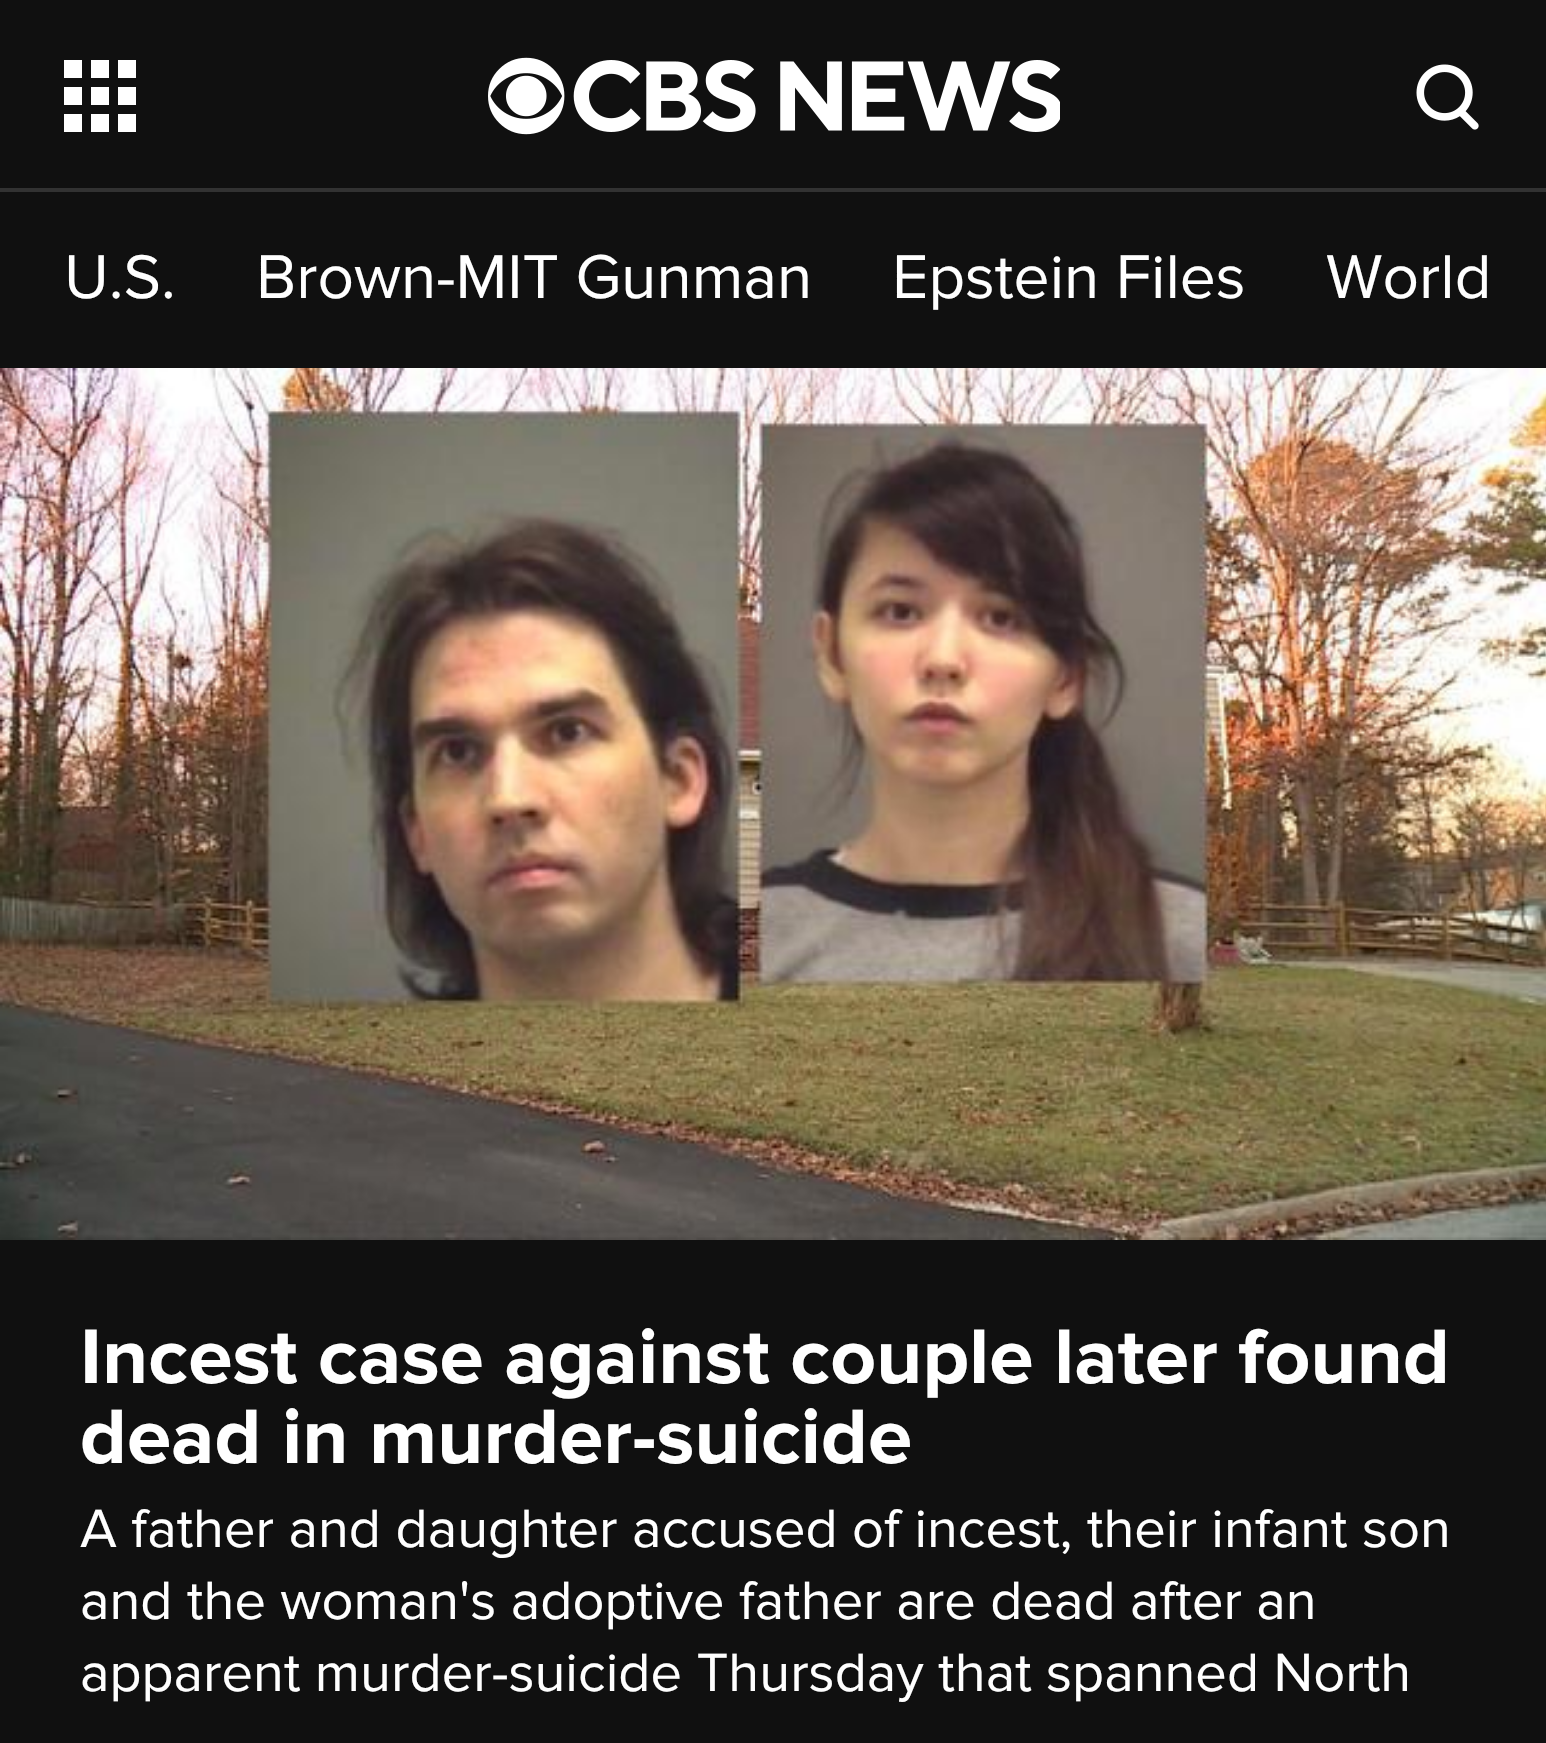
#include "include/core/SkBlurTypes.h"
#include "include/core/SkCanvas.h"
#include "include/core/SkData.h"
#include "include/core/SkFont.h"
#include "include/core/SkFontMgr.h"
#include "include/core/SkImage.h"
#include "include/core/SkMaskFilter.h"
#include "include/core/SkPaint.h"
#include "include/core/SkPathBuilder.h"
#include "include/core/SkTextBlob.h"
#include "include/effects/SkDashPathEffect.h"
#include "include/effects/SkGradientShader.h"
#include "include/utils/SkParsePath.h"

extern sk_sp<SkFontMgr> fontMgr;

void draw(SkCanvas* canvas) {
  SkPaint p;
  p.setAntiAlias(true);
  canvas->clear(SkColorSetRGB(16, 16, 16));
  p.setColor(SkColorSetRGB(50, 50, 50));
  canvas->drawRect(SkRect::MakeLTRB(0, 188, 1546, 192), p);
  canvas->drawImageRect(SkImages::DeferredFromEncodedData(SkData::MakeFromFileName("images/1.png")), SkRect::MakeLTRB(64, 60, 136, 132), SkSamplingOptions());
  canvas->drawImageRect(SkImages::DeferredFromEncodedData(SkData::MakeFromFileName("images/2.png")), SkRect::MakeLTRB(488, 57, 1060, 135), SkSamplingOptions());
  canvas->drawImageRect(SkImages::DeferredFromEncodedData(SkData::MakeFromFileName("images/3.png")), SkRect::MakeLTRB(1416, 64, 1479, 130), SkSamplingOptions());
  canvas->drawImageRect(SkImages::DeferredFromEncodedData(SkData::MakeFromFileName("images/4.png")), SkRect::MakeLTRB(0, 368, 1546, 1240), SkSamplingOptions());
  SkFont font1(fontMgr->matchFamilyStyle("Proxima Nova", SkFontStyle::Normal()), 64);
  font1.setSubpixel(true);
  p.setColor(SK_ColorWHITE);
  canvas->drawString("U.S.", 64, 298, font1, p);
  canvas->drawString("Brown-MIT Gunman", 256, 298, font1, p);
  canvas->drawString("Epstein Files", 892, 298, font1, p);
  canvas->drawString("World", 1326, 298, font1, p);
  SkFont font2(fontMgr->matchFamilyStyle("Proxima Nova", SkFontStyle::Bold()), 80);
  font2.setSubpixel(true);
  canvas->drawString("Incest case against couple later found", 80, 1383, font2, p);
  canvas->drawString("dead in murder-suicide", 80, 1463, font2, p);
  SkFont font3(fontMgr->matchFamilyStyle("Proxima Nova", SkFontStyle::Normal()), 56);
  font3.setSubpixel(true);
  canvas->drawString("A father and daughter accused of incest, their infant son", 80, 1547, font3, p);
  canvas->drawString("and the woman's adoptive father are dead after an", 80, 1619, font3, p);
  canvas->drawString("apparent murder-suicide Thursday that spanned North", 80, 1691, font3, p);
}
